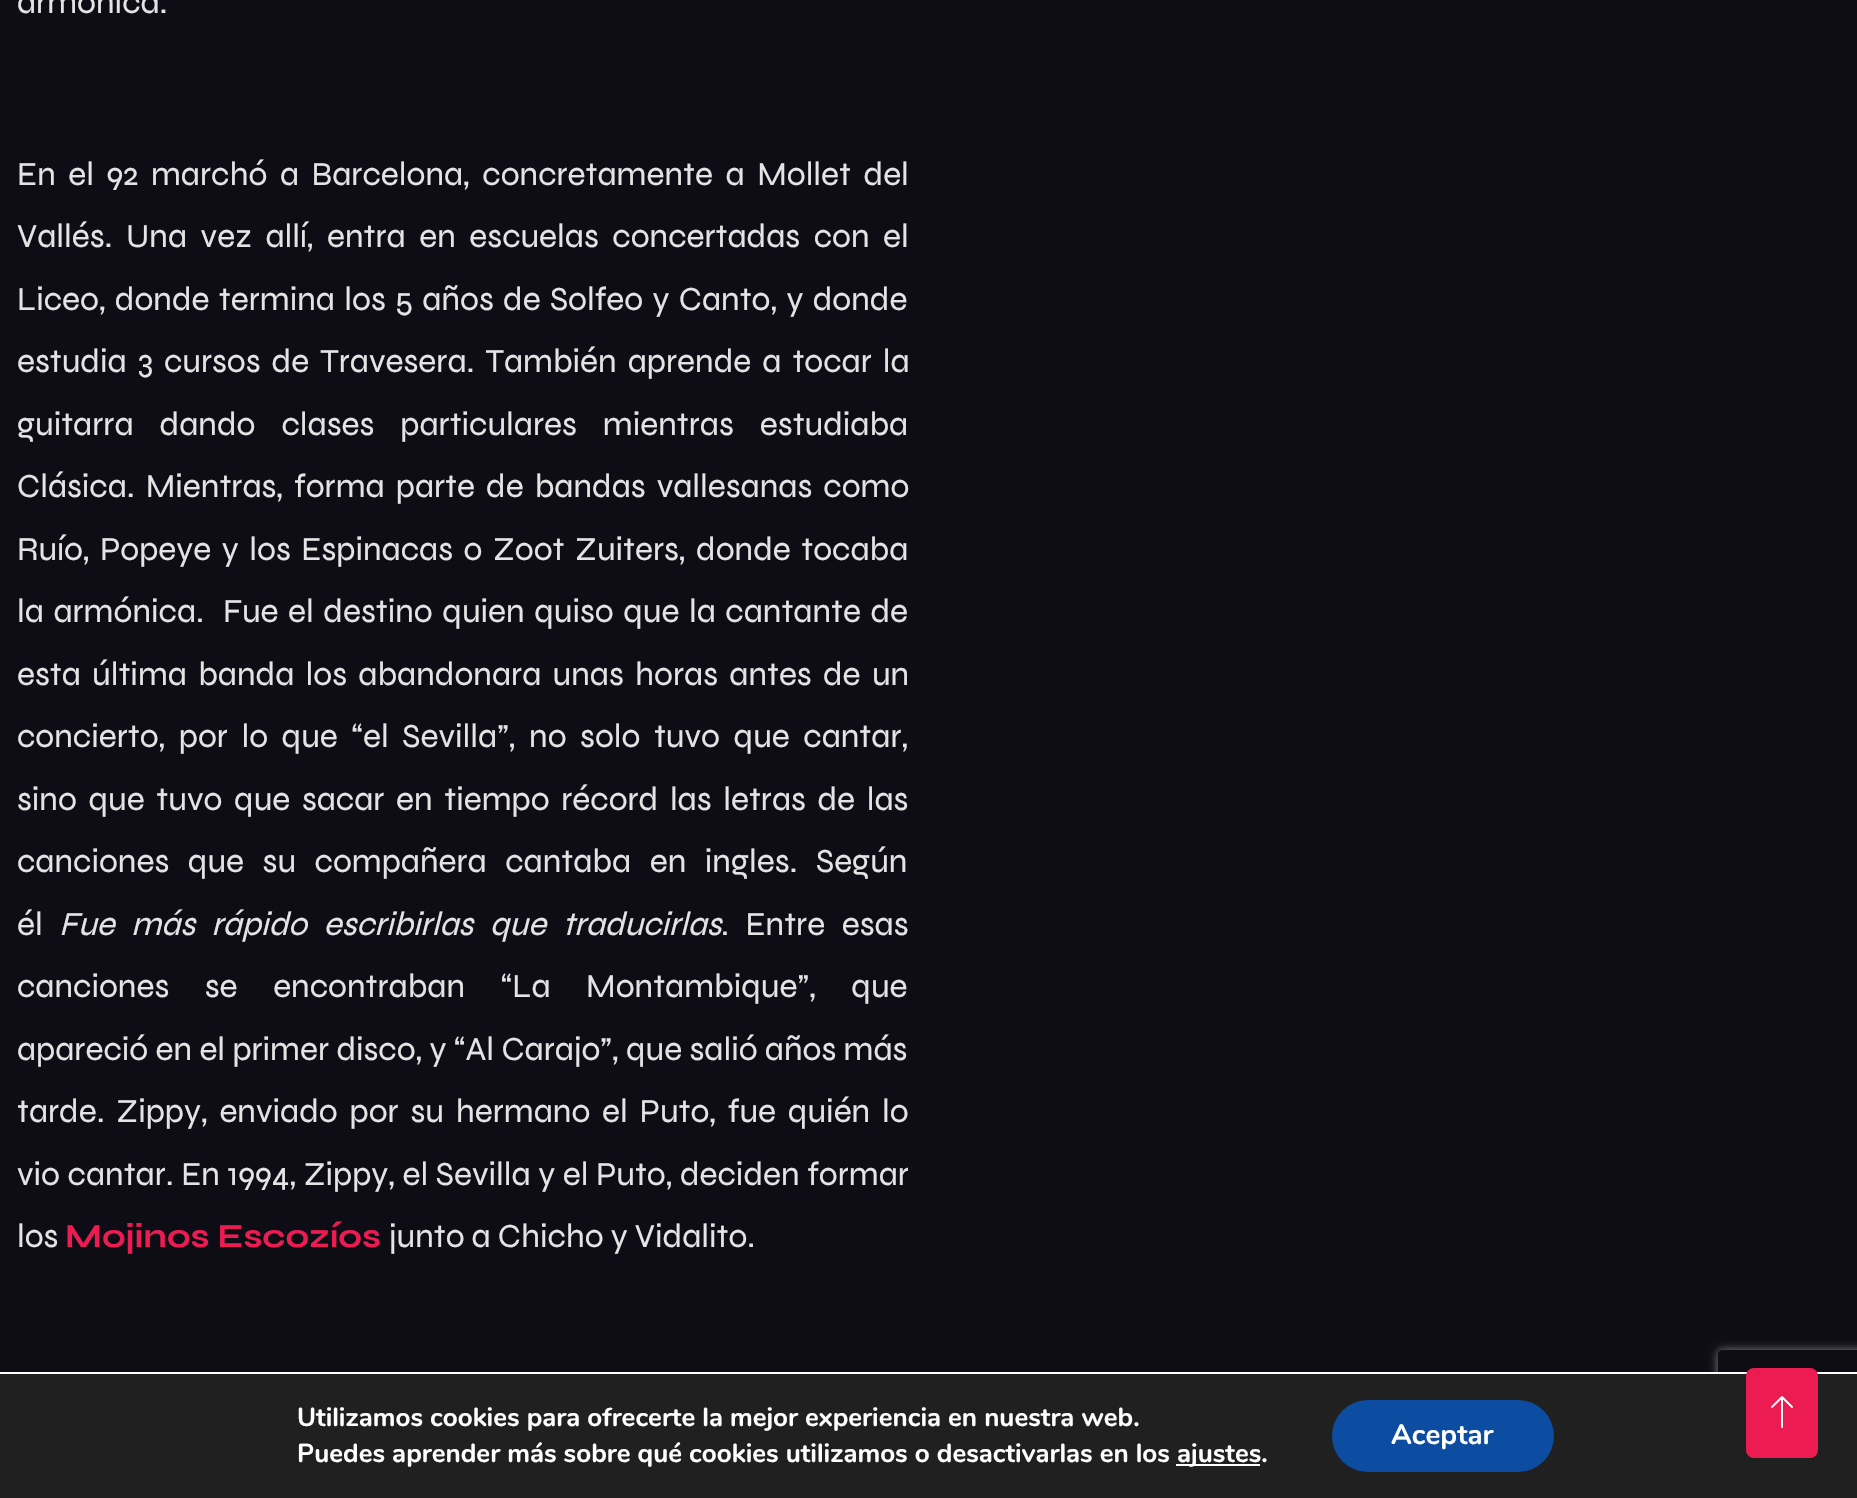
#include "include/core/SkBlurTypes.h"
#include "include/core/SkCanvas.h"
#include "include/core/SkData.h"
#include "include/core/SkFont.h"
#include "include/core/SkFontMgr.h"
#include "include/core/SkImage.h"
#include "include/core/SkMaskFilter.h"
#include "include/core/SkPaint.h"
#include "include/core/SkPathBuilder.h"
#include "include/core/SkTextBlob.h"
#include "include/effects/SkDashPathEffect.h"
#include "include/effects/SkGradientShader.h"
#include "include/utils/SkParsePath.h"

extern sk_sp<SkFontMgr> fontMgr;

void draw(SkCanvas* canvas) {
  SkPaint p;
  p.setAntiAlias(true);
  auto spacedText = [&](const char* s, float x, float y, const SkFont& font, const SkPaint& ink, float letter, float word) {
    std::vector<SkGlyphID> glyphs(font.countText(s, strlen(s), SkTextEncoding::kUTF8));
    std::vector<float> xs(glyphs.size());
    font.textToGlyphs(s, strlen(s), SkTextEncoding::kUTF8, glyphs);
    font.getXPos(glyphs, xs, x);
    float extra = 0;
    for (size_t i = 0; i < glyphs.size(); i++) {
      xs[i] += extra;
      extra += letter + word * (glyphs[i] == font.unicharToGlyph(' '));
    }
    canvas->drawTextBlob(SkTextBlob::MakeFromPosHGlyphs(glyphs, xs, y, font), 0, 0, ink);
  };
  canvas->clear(SkColorSetRGB(14, 13, 22));
  canvas->save();
  canvas->clipPath(SkPathBuilder(SkPathFillType::kEvenOdd).moveTo(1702, 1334).lineTo(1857, 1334).lineTo(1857, 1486).lineTo(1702, 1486).close().moveTo(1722, 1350).lineTo(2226, 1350).cubicTo(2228, 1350, 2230, 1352, 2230, 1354).lineTo(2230, 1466).cubicTo(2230, 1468, 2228, 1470, 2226, 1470).lineTo(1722, 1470).cubicTo(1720, 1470, 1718, 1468, 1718, 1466).lineTo(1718, 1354).cubicTo(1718, 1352, 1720, 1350, 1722, 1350).close().detach(), true);
  p.setColor(SkColorSetRGB(128, 128, 128));
  p.setMaskFilter(SkMaskFilter::MakeBlur(kNormal_SkBlurStyle, 5));
  canvas->drawRoundRect(SkRect::MakeLTRB(1718, 1350, 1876, 1470), 4, 4, p);
  p.setMaskFilter(nullptr);
  canvas->restore();
  p.setColor(SkColorSetRGB(32, 32, 32));
  canvas->drawRect(SkRect::MakeLTRB(0, 1374, 1857, 1498), p);
  p.setColor(SK_ColorWHITE);
  canvas->drawRect(SkRect::MakeLTRB(0, 1372, 1857, 1374), p);
  canvas->drawRect(SkRect::MakeLTRB(1176, 1464, 1260, 1466), p);
  p.setColor(SkColorSetRGB(12, 77, 162));
  canvas->drawRoundRect(SkRect::MakeLTRB(1332, 1400, 1554, 1472), 36, 36, p);
  p.setColor(SkColorSetRGB(236, 27, 82));
  canvas->drawRoundRect(SkRect::MakeLTRB(1746, 1368, 1818, 1458), 8, 8, p);
  canvas->drawImageRect(SkImages::DeferredFromEncodedData(SkData::MakeFromFileName("images/1.png")), SkRect::MakeLTRB(1771, 1396, 1793, 1428), SkSamplingOptions());
  SkFont font1(fontMgr->matchFamilyStyle("Syne", SkFontStyle::Normal()), 33.6f);
  font1.setSubpixel(true);
  p.setColor(SkColorSetRGB(228, 228, 228));
  canvas->drawString("armónica.", 17, 13, font1, p);
  spacedText("En el 92 marchó a Barcelona, concretamente a Mollet del", 17, 185, font1, p, 0, 5.5f);
  spacedText("Vallés. Una vez allí, entra en escuelas concertadas con el", 17, 247, font1, p, 0, 6.5f);
  spacedText("Liceo, donde termina los 5 años de Solfeo y Canto, y donde", 17, 310, font1, p, 0, 2.25f);
  spacedText("estudia 3 cursos de Travesera. También aprende a tocar la", 17, 372, font1, p, 0, 4);
  spacedText("guitarra dando clases particulares mientras estudiaba", 17, 435, font1, p, 0, 19);
  spacedText("Clásica. Mientras, forma parte de bandas vallesanas como", 17, 497, font1, p, 0, 4);
  spacedText("Ruío, Popeye y los Espinacas o Zoot Zuiters, donde tocaba", 17, 560, font1, p, 0, 3.5f);
  spacedText("la armónica.  Fue el destino quien quiso que la cantante de", 17, 622, font1, p, 0, 2.5f);
  spacedText("esta última banda los abandonara unas horas antes de un", 17, 685, font1, p, 0, 4.25f);
  spacedText("concierto, por lo que “el Sevilla”, no solo tuvo que cantar,", 17, 747, font1, p, 0, 6.5f);
  spacedText("sino que tuvo que sacar en tiempo récord las letras de las", 17, 810, font1, p, 0, 4.6f);
  spacedText("canciones que su compañera cantaba en ingles. Según", 17, 872, font1, p, 0, 11.5f);
  canvas->drawString("él", 17, 935, font1, p);
  SkFont font2(fontMgr->matchFamilyStyle("Syne", SkFontStyle::Italic()), 33.6f);
  font2.setSubpixel(true);
  spacedText("Fue más rápido escribirlas que traducirlas", 59, 935, font2, p, 0, 9.5f);
  spacedText(". Entre esas", 721, 935, font1, p, 0, 9.5f);
  spacedText("canciones se encontraban “La Montambique”, que", 17, 997, font1, p, 0, 28.5f);
  spacedText("apareció en el primer disco, y “Al Carajo”, que salió años más", 17, 1060, font1, p, 0, 0.25f);
  spacedText("tarde. Zippy, enviado por su hermano el Puto, fue quién lo", 17, 1122, font1, p, 0, 4.75f);
  spacedText("vio cantar. En 1994, Zippy, el Sevilla y el Puto, deciden formar", 17, 1185, font1, p, 0, 0.5f);
  canvas->drawString("los", 17, 1247, font1, p);
  SkFont font3(fontMgr->matchFamilyStyle("Syne", SkFontStyle::Bold()), 33.6f);
  font3.setSubpixel(true);
  p.setColor(SkColorSetRGB(236, 27, 82));
  canvas->drawString("Mojinos Escozíos", 65, 1247, font3, p);
  p.setColor(SkColorSetRGB(228, 228, 228));
  canvas->drawString("junto a Chicho y Vidalito.", 389, 1247, font1, p);
  SkFont font4(fontMgr->matchFamilyStyle("Nunito", SkFontStyle::Bold()), 26);
  font4.setSubpixel(true);
  p.setColor(SK_ColorWHITE);
  canvas->drawString("Utilizamos cookies para ofrecerte la mejor experiencia en nuestra web.", 297, 1426, font4, p);
  canvas->drawString("Puedes aprender más sobre qué cookies utilizamos o desactivarlas en los", 297, 1462, font4, p);
  canvas->drawString("ajustes.", 1177, 1462, font4, p);
  SkFont font5(fontMgr->matchFamilyStyle("Nunito", SkFontStyle::Bold()), 28);
  font5.setSubpixel(true);
  canvas->drawString("Aceptar", 1391, 1444, font5, p);
}
